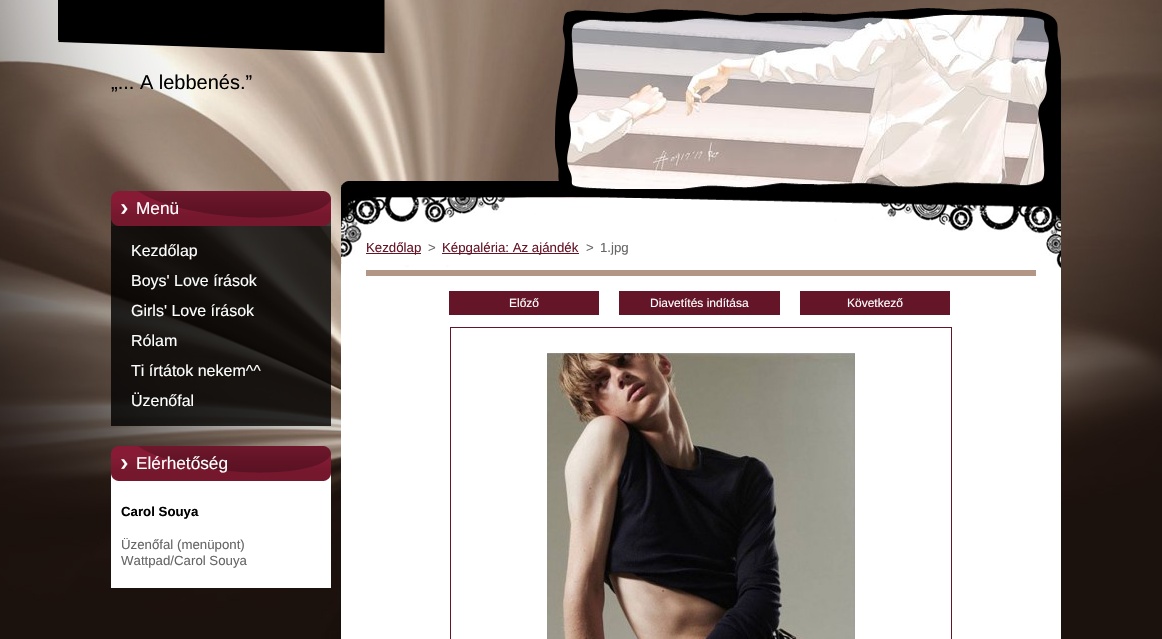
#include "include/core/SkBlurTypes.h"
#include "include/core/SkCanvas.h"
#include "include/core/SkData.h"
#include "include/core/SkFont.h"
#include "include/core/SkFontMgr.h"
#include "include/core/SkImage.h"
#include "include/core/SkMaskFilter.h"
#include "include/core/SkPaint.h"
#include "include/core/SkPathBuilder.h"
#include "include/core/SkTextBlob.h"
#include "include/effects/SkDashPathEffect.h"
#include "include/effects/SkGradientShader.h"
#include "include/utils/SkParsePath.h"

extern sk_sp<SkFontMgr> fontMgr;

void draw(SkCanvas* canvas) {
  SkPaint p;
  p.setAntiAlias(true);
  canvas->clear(SK_ColorWHITE);
  canvas->drawImageRect(SkImages::DeferredFromEncodedData(SkData::MakeFromFileName("images/1.png")), SkRect::MakeLTRB(0, 0, 1162, 639), SkSamplingOptions());
  canvas->drawImageRect(SkImages::DeferredFromEncodedData(SkData::MakeFromFileName("images/2.png")), SkRect::MakeLTRB(58, 0, 385, 53), SkSamplingOptions());
  p.setColor(SK_ColorWHITE);
  canvas->drawRect(SkRect::MakeLTRB(341, 186, 1061, 639), p);
  canvas->drawImageRect(SkImages::DeferredFromEncodedData(SkData::MakeFromFileName("images/3.png")), SkRect::MakeLTRB(341, 181, 1061, 191), SkSamplingOptions());
  canvas->drawImageRect(SkImages::DeferredFromEncodedData(SkData::MakeFromFileName("images/5.png")), SkRect::MakeLTRB(567, 15, 1050, 189), SkSamplingOptions());
  canvas->drawImageRect(SkImages::DeferredFromEncodedData(SkData::MakeFromFileName("images/4.png")), SkRect::MakeLTRB(554, 8, 1061, 189), SkSamplingOptions());
  canvas->drawImageRect(SkImages::DeferredFromEncodedData(SkData::MakeFromFileName("images/6.png")), SkRect::MakeLTRB(111, 191, 331, 226), SkSamplingOptions());
  p.setColor(SkColorSetARGB(204, 0, 0, 0));
  canvas->drawRect(SkRect::MakeLTRB(111, 226, 331, 426), p);
  p.setColor(SK_ColorWHITE);
  canvas->drawRect(SkRect::MakeLTRB(111, 481, 331, 588), p);
  canvas->drawImageRect(SkImages::DeferredFromEncodedData(SkData::MakeFromFileName("images/7.png")), SkRect::MakeLTRB(111, 446, 331, 481), SkSamplingOptions());
  canvas->drawImageRect(SkImages::DeferredFromEncodedData(SkData::MakeFromFileName("images/8.png")), SkRect::MakeLTRB(341, 191, 1061, 268), SkSamplingOptions());
  p.setColor(SkColorSetRGB(101, 21, 40));
  canvas->drawRect(SkRect::MakeLTRB(366, 253, 421, 254), p);
  canvas->drawRect(SkRect::MakeLTRB(442, 253, 579, 254), p);
  p.setColor(SkColorSetRGB(179, 150, 133));
  canvas->drawRect(SkRect::MakeLTRB(366, 270, 1036, 276), p);
  p.setColor(SkColorSetRGB(101, 21, 40));
  canvas->drawRect(SkRect::MakeLTRB(449, 291, 599, 315), p);
  canvas->drawRect(SkRect::MakeLTRB(619, 291, 780, 315), p);
  canvas->drawRect(SkRect::MakeLTRB(800, 291, 950, 315), p);
  p.setStyle(SkPaint::kStroke_Style);
  p.setStrokeWidth(1);
  canvas->drawRect(SkRect::MakeLTRB(450.5f, 327.5f, 951.5f, 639.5f), p);
  canvas->drawImageRect(SkImages::DeferredFromEncodedData(SkData::MakeFromFileName("images/9.png")), SkRect::MakeLTRB(547, 353, 855, 639), SkSamplingOptions());
  SkFont font1(fontMgr->matchFamilyStyle("Liberation Sans", SkFontStyle::Normal()), 20);
  font1.setSubpixel(true);
  p.setStyle(SkPaint::kFill_Style);
  p.setColor(SK_ColorBLACK);
  canvas->drawString("„... A lebbenés.”", 111, 89, font1, p);
  SkFont font2(fontMgr->matchFamilyStyle("Liberation Sans", SkFontStyle::Normal()), 17.25f);
  font2.setSubpixel(true);
  p.setColor(SK_ColorWHITE);
  canvas->drawString("Menü", 136, 214, font2, p);
  SkFont font3(fontMgr->matchFamilyStyle("Liberation Sans", SkFontStyle::Normal()), 16);
  font3.setSubpixel(true);
  canvas->drawString("Kezdőlap", 131, 256, font3, p);
  canvas->drawString("Boys' Love írások", 131, 286, font3, p);
  canvas->drawString("Girls' Love írások", 131, 316, font3, p);
  canvas->drawString("Rólam", 131, 346, font3, p);
  canvas->drawString("Ti írtátok nekem^^", 131, 376, font3, p);
  canvas->drawString("Üzenőfal", 131, 406, font3, p);
  canvas->drawString("Elérhetőség", 136, 469, font2, p);
  SkFont font4(fontMgr->matchFamilyStyle("Liberation Sans", SkFontStyle::Bold()), 13.25f);
  font4.setSubpixel(true);
  p.setColor(SK_ColorBLACK);
  canvas->drawString("Carol Souya", 121, 516, font4, p);
  SkFont font5(fontMgr->matchFamilyStyle("Liberation Sans", SkFontStyle::Normal()), 13.25f);
  font5.setSubpixel(true);
  p.setColor(SkColorSetRGB(102, 102, 102));
  canvas->drawString("Üzenőfal (menüpont)", 121, 549, font5, p);
  canvas->drawString("Wattpad/Carol Souya", 121, 565, font5, p);
  p.setColor(SkColorSetRGB(101, 21, 40));
  canvas->drawString("Kezdőlap", 366, 252, font5, p);
  p.setColor(SkColorSetRGB(102, 102, 102));
  canvas->drawString(">", 428, 252, font5, p);
  p.setColor(SkColorSetRGB(101, 21, 40));
  canvas->drawString("Képgaléria: Az ajándék", 442, 252, font5, p);
  p.setColor(SkColorSetRGB(102, 102, 102));
  canvas->drawString(">", 586, 252, font5, p);
  canvas->drawString("1.jpg", 600, 252, font5, p);
  SkFont font6(fontMgr->matchFamilyStyle("Liberation Sans", SkFontStyle::Normal()), 12);
  font6.setSubpixel(true);
  p.setColor(SK_ColorWHITE);
  canvas->drawString("Előző", 509, 307, font6, p);
  canvas->drawString("Diavetítés indítása", 650, 307, font6, p);
  canvas->drawString("Következő", 847, 307, font6, p);
}
